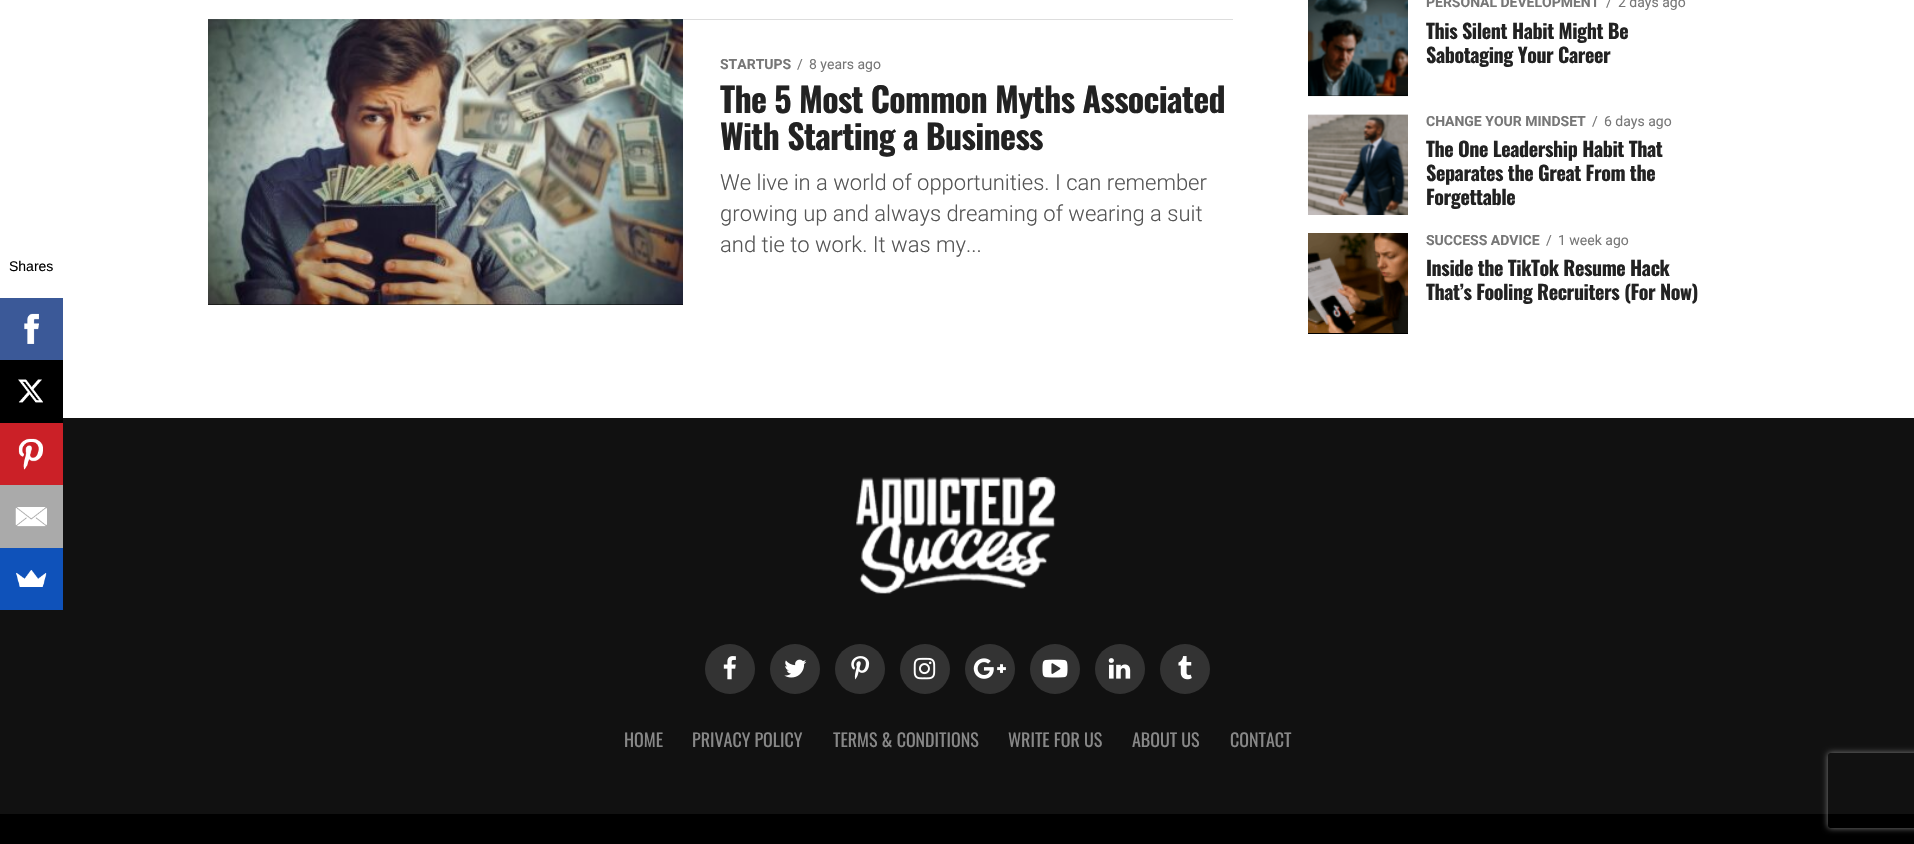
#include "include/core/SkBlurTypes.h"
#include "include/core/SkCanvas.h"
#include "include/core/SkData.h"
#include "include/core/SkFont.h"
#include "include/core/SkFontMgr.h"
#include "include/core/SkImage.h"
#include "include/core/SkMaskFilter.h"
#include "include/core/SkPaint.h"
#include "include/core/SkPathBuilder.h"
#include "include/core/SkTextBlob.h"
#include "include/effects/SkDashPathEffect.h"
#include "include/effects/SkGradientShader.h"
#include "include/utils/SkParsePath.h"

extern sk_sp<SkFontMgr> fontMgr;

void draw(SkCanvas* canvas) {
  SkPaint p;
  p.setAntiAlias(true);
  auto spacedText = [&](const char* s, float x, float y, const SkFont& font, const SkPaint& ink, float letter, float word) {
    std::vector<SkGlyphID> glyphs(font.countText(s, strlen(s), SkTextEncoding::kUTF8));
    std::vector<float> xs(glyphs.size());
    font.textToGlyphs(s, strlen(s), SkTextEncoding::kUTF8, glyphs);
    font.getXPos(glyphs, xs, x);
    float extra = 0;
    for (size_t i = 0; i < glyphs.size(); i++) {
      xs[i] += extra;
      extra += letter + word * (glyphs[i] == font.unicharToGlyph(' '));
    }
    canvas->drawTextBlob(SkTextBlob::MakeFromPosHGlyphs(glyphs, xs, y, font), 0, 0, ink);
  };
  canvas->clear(SK_ColorWHITE);
  p.setColor(SkColorSetRGB(59, 89, 152));
  canvas->drawRect(SkRect::MakeLTRB(0, 298, 63, 360), p);
  canvas->drawImageRect(SkImages::DeferredFromEncodedData(SkData::MakeFromFileName("images/1.png")), SkRect::MakeLTRB(24, 313, 39, 344), SkSamplingOptions());
  p.setColor(SkColorSetRGB(17, 17, 17));
  canvas->drawRect(SkRect::MakeLTRB(0, 418, 1914, 814), p);
  p.setColor(SK_ColorBLACK);
  canvas->drawRect(SkRect::MakeLTRB(0, 360, 63, 423), p);
  canvas->drawImageRect(SkImages::DeferredFromEncodedData(SkData::MakeFromFileName("images/2.png")), SkRect::MakeLTRB(18, 379, 43, 403), SkSamplingOptions());
  p.setColor(SkColorSetRGB(203, 32, 39));
  canvas->drawRect(SkRect::MakeLTRB(0, 423, 63, 485), p);
  canvas->drawImageRect(SkImages::DeferredFromEncodedData(SkData::MakeFromFileName("images/3.png")), SkRect::MakeLTRB(18, 438, 43, 470), SkSamplingOptions());
  p.setColor(SkColorSetRGB(170, 170, 170));
  canvas->drawRect(SkRect::MakeLTRB(0, 485, 63, 548), p);
  canvas->drawImageRect(SkImages::DeferredFromEncodedData(SkData::MakeFromFileName("images/4.png")), SkRect::MakeLTRB(15, 507, 47, 527), SkSamplingOptions());
  p.setColor(SkColorSetRGB(15, 82, 186));
  canvas->drawRect(SkRect::MakeLTRB(0, 548, 63, 610), p);
  canvas->drawImageRect(SkImages::DeferredFromEncodedData(SkData::MakeFromFileName("images/5.png")), SkRect::MakeLTRB(16, 570, 47, 587), SkSamplingOptions());
  p.setColor(SkColorSetRGB(221, 221, 221));
  canvas->drawRect(SkRect::MakeLTRB(208, 19, 1233, 20), p);
  p.setColor(SK_ColorBLACK);
  canvas->drawRect(SkRect::MakeLTRB(208, 20, 683, 305), p);
  canvas->drawImageRect(SkImages::DeferredFromEncodedData(SkData::MakeFromFileName("images/6.png")), SkRect::MakeLTRB(208, 19, 683, 305), SkSamplingOptions());
  canvas->drawRect(SkRect::MakeLTRB(1308, 95, 1408, 96), p);
  canvas->drawImageRect(SkImages::DeferredFromEncodedData(SkData::MakeFromFileName("images/7.png")), SkRect::MakeLTRB(1308, 0, 1408, 97), SkSamplingOptions());
  canvas->drawImageRect(SkImages::DeferredFromEncodedData(SkData::MakeFromFileName("images/8.png")), SkRect::MakeLTRB(1308, 114, 1408, 215), SkSamplingOptions());
  canvas->drawRect(SkRect::MakeLTRB(1308, 333, 1408, 334), p);
  canvas->drawImageRect(SkImages::DeferredFromEncodedData(SkData::MakeFromFileName("images/9.png")), SkRect::MakeLTRB(1308, 233, 1408, 333), SkSamplingOptions());
  canvas->drawImageRect(SkImages::DeferredFromEncodedData(SkData::MakeFromFileName("images/10.png")), SkRect::MakeLTRB(856, 476, 1056, 594), SkSamplingOptions());
  p.setColor(SkColorSetRGB(51, 51, 51));
  canvas->drawCircle(730, 669, 25, p);
  canvas->drawImageRect(SkImages::DeferredFromEncodedData(SkData::MakeFromFileName("images/11.png")), SkRect::MakeLTRB(723, 656, 736, 680), SkSamplingOptions());
  canvas->drawCircle(795, 669, 25, p);
  canvas->drawImageRect(SkImages::DeferredFromEncodedData(SkData::MakeFromFileName("images/12.png")), SkRect::MakeLTRB(784, 659, 807, 678), SkSamplingOptions());
  canvas->drawCircle(860, 669, 25, p);
  canvas->drawImageRect(SkImages::DeferredFromEncodedData(SkData::MakeFromFileName("images/13.png")), SkRect::MakeLTRB(851, 656, 870, 680), SkSamplingOptions());
  canvas->drawCircle(925, 669, 25, p);
  canvas->drawImageRect(SkImages::DeferredFromEncodedData(SkData::MakeFromFileName("images/14.png")), SkRect::MakeLTRB(913, 657, 936, 680), SkSamplingOptions());
  canvas->drawCircle(990, 669, 25, p);
  canvas->drawImageRect(SkImages::DeferredFromEncodedData(SkData::MakeFromFileName("images/15.png")), SkRect::MakeLTRB(973, 658, 1006, 679), SkSamplingOptions());
  canvas->drawCircle(1055, 669, 25, p);
  canvas->drawImageRect(SkImages::DeferredFromEncodedData(SkData::MakeFromFileName("images/16.png")), SkRect::MakeLTRB(1042, 659, 1068, 678), SkSamplingOptions());
  canvas->drawCircle(1120, 669, 25, p);
  canvas->drawImageRect(SkImages::DeferredFromEncodedData(SkData::MakeFromFileName("images/17.png")), SkRect::MakeLTRB(1108, 658, 1131, 679), SkSamplingOptions());
  canvas->drawCircle(1185, 669, 25, p);
  canvas->drawImageRect(SkImages::DeferredFromEncodedData(SkData::MakeFromFileName("images/18.png")), SkRect::MakeLTRB(1178, 656, 1192, 680), SkSamplingOptions());
  p.setColor(SK_ColorBLACK);
  canvas->drawRect(SkRect::MakeLTRB(0, 814, 1914, 844), p);
  canvas->save();
  canvas->clipPath(SkPathBuilder(SkPathFillType::kEvenOdd).moveTo(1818, 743).lineTo(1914, 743).lineTo(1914, 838).lineTo(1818, 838).close().moveTo(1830.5f, 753).lineTo(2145.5f, 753).cubicTo(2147, 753, 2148, 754, 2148, 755.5f).lineTo(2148, 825.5f).cubicTo(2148, 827, 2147, 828, 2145.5f, 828).lineTo(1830.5f, 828).cubicTo(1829, 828, 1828, 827, 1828, 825.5f).lineTo(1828, 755.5f).cubicTo(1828, 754, 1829, 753, 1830.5f, 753).close().detach(), true);
  p.setColor(SkColorSetRGB(128, 128, 128));
  p.setMaskFilter(SkMaskFilter::MakeBlur(kNormal_SkBlurStyle, 3));
  canvas->drawRoundRect(SkRect::MakeLTRB(1828, 753, 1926, 828), 2.5f, 2.5f, p);
  p.setMaskFilter(nullptr);
  canvas->restore();
  SkFont font1(fontMgr->matchFamilyStyle("Liberation Sans", SkFontStyle::Normal()), 14);
  font1.setSubpixel(true);
  p.setColor(SK_ColorBLACK);
  canvas->drawString("Shares", 9, 271, font1, p);
  SkFont font2(fontMgr->matchFamilyStyle("Roboto", SkFontStyle::Bold()), 14);
  font2.setSubpixel(true);
  p.setColor(SkColorSetRGB(119, 119, 119));
  canvas->drawString("STARTUPS", 720, 69, font2, p);
  SkFont font3(fontMgr->matchFamilyStyle("Roboto", SkFontStyle::Normal()), 14);
  font3.setSubpixel(true);
  canvas->drawString("/", 797, 69, font3, p);
  canvas->drawString("8 years ago", 809, 69, font3, p);
  SkFont font4(fontMgr->matchFamilyStyle("Oswald", SkFontStyle::Bold()), 34);
  font4.setSubpixel(true);
  p.setColor(SkColorSetRGB(34, 34, 34));
  spacedText("The 5 Most Common Myths Associated", 720, 113, font4, p, -0.7f, 0);
  spacedText("With Starting a Business", 720, 150, font4, p, -0.7f, 0);
  SkFont font5(fontMgr->matchFamilyStyle("Roboto", SkFontStyle(300, SkFontStyle::kNormal_Width, SkFontStyle::kUpright_Slant)), 22);
  font5.setSubpixel(true);
  p.setColor(SkColorSetRGB(85, 85, 85));
  canvas->drawString("We live in a world of opportunities. I can remember", 720, 190, font5, p);
  canvas->drawString("growing up and always dreaming of wearing a suit", 720, 221, font5, p);
  canvas->drawString("and tie to work. It was my...", 720, 252, font5, p);
  p.setColor(SkColorSetRGB(119, 119, 119));
  canvas->drawString("PERSONAL DEVELOPMENT", 1426, 7, font2, p);
  canvas->drawString("/", 1606, 7, font3, p);
  canvas->drawString("2 days ago", 1618, 7, font3, p);
  SkFont font6(fontMgr->matchFamilyStyle("Oswald", SkFontStyle::Bold()), 20);
  font6.setSubpixel(true);
  p.setColor(SkColorSetRGB(34, 34, 34));
  spacedText("This Silent Habit Might Be", 1426, 39, font6, p, -0.4f, 0);
  spacedText("Sabotaging Your Career", 1426, 63, font6, p, -0.4f, 0);
  p.setColor(SkColorSetRGB(119, 119, 119));
  canvas->drawString("CHANGE YOUR MINDSET", 1426, 126, font2, p);
  canvas->drawString("/", 1592, 126, font3, p);
  canvas->drawString("6 days ago", 1604, 126, font3, p);
  p.setColor(SkColorSetRGB(34, 34, 34));
  spacedText("The One Leadership Habit That", 1426, 157, font6, p, -0.4f, 0);
  spacedText("Separates the Great From the", 1426, 181, font6, p, -0.4f, 0);
  spacedText("Forgettable", 1426, 205, font6, p, -0.4f, 0);
  p.setColor(SkColorSetRGB(119, 119, 119));
  canvas->drawString("SUCCESS ADVICE", 1426, 245, font2, p);
  canvas->drawString("/", 1546, 245, font3, p);
  canvas->drawString("1 week ago", 1558, 245, font3, p);
  p.setColor(SkColorSetRGB(34, 34, 34));
  spacedText("Inside the TikTok Resume Hack", 1426, 276, font6, p, -0.4f, 0);
  spacedText("That’s Fooling Recruiters (For Now)", 1426, 300, font6, p, -0.4f, 0);
  SkFont font7(fontMgr->matchFamilyStyle("Oswald", SkFontStyle::Normal()), 18);
  font7.setSubpixel(true);
  p.setColor(SkColorSetRGB(136, 136, 136));
  canvas->drawString("HOME", 624, 747, font7, p);
  canvas->drawString("PRIVACY POLICY", 692, 747, font7, p);
  canvas->drawString("TERMS & CONDITIONS", 833, 747, font7, p);
  canvas->drawString("WRITE FOR US", 1008, 747, font7, p);
  canvas->drawString("ABOUT US", 1132, 747, font7, p);
  canvas->drawString("CONTACT", 1230, 747, font7, p);
}
